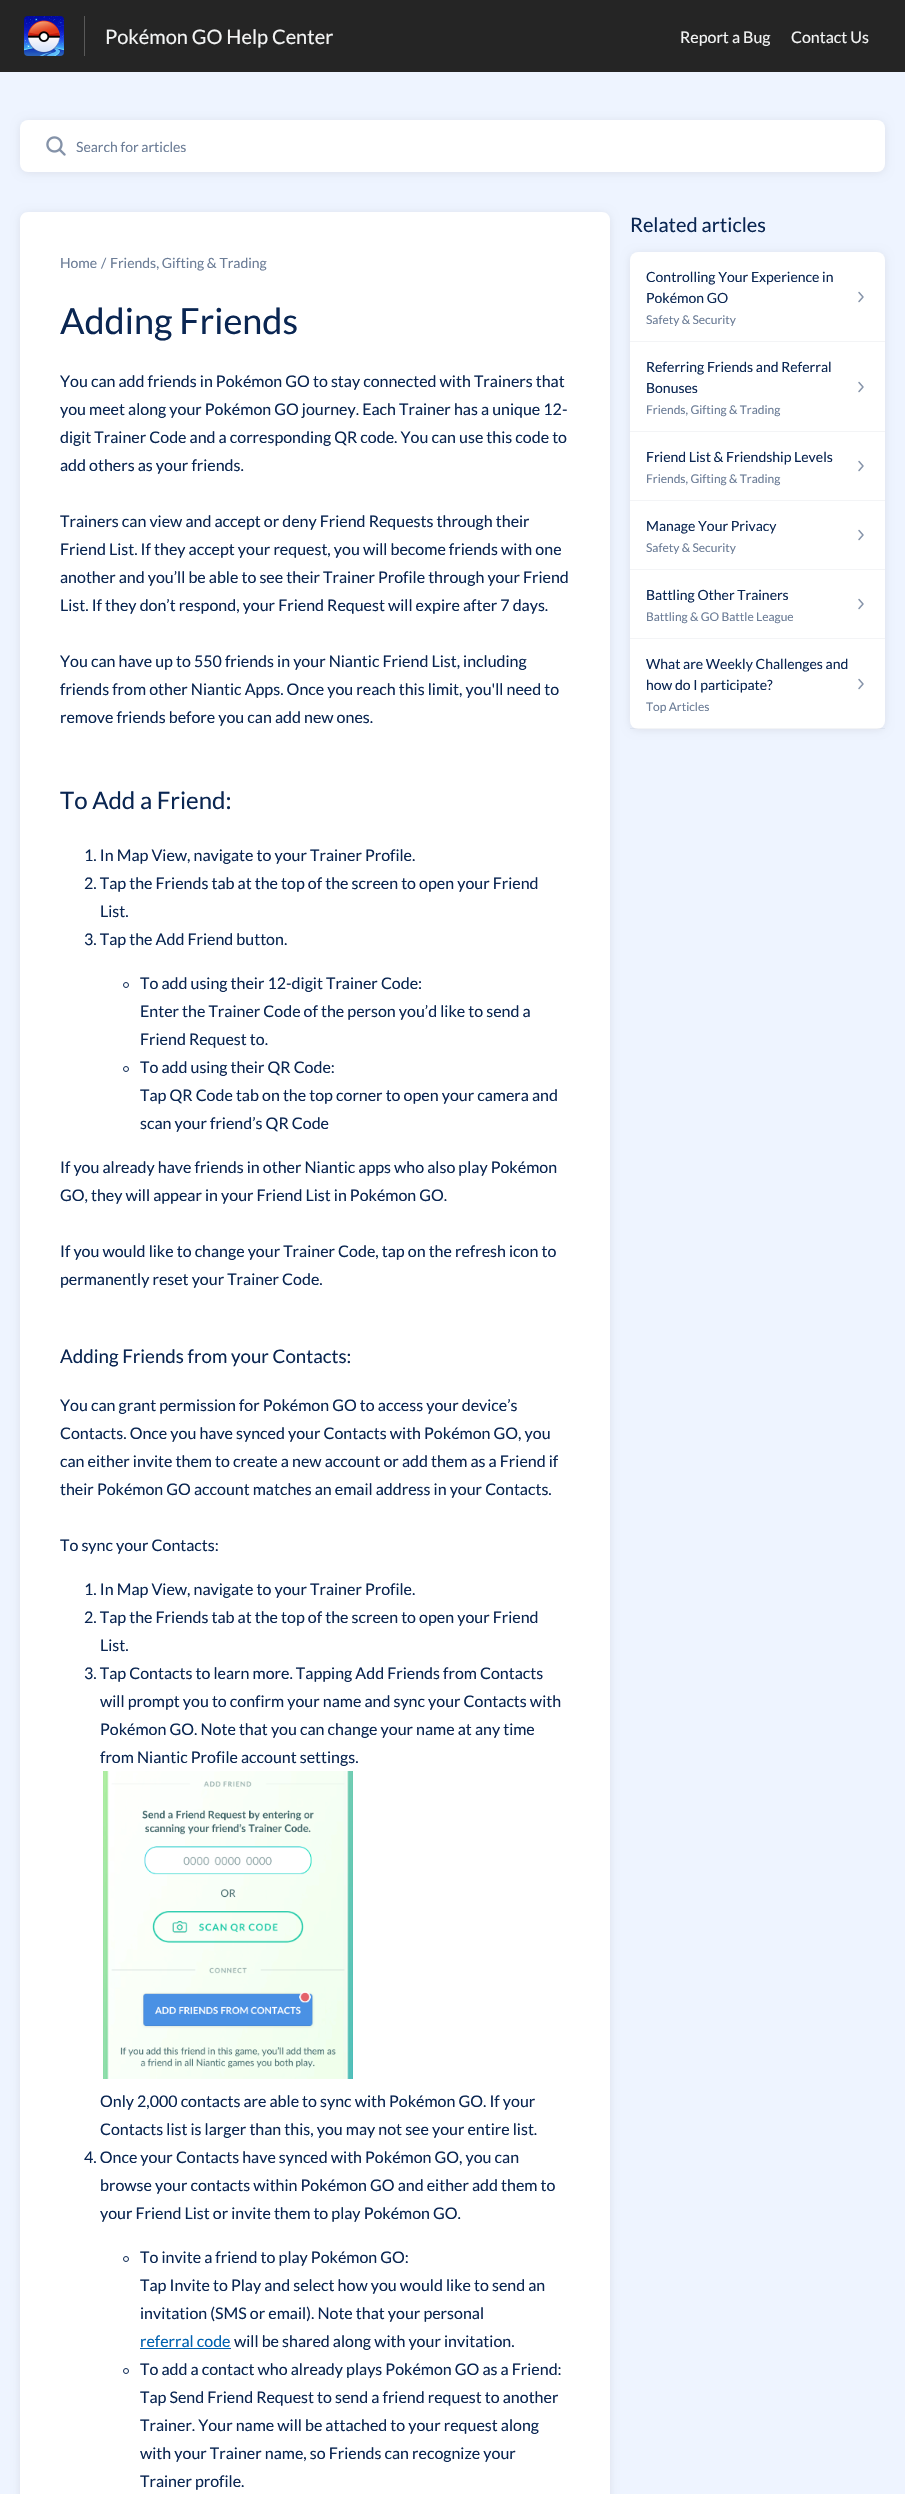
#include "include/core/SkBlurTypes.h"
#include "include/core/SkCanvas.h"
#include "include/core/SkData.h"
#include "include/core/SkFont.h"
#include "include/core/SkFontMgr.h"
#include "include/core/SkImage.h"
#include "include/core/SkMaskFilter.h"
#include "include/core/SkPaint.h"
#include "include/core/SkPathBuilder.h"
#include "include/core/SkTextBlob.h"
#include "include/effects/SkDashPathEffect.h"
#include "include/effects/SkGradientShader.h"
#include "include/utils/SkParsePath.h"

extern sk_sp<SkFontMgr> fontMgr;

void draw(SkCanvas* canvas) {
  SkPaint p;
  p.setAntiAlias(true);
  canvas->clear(SkColorSetRGB(238, 244, 255));
  p.setColor(SkColorSetRGB(37, 37, 37));
  canvas->drawRect(SkRect::MakeLTRB(0, 0, 905, 72), p);
  p.setColor(SkColorSetRGB(89, 89, 89));
  canvas->drawRect(SkRect::MakeLTRB(84, 16, 85, 56), p);
  canvas->drawImageRect(SkImages::DeferredFromEncodedData(SkData::MakeFromFileName("images/1.png")), SkRect::MakeLTRB(24, 16, 64, 56), SkSamplingOptions());
  p.setColor(SkColorSetARGB(20, 0, 0, 0));
  p.setMaskFilter(SkMaskFilter::MakeBlur(kNormal_SkBlurStyle, 4));
  canvas->drawRoundRect(SkRect::MakeLTRB(20, 121, 885, 173), 8, 8, p);
  p.setMaskFilter(nullptr);
  p.setColor(SK_ColorWHITE);
  canvas->drawRoundRect(SkRect::MakeLTRB(20, 120, 885, 172), 8, 8, p);
  canvas->drawImageRect(SkImages::DeferredFromEncodedData(SkData::MakeFromFileName("images/2.png")), SkRect::MakeLTRB(46, 136, 66, 156), SkSamplingOptions());
  p.setColor(SkColorSetARGB(20, 0, 0, 0));
  p.setMaskFilter(SkMaskFilter::MakeBlur(kNormal_SkBlurStyle, 4));
  canvas->drawRoundRect(SkRect::MakeLTRB(20, 213, 610, 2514), 8, 8, p);
  p.setMaskFilter(nullptr);
  p.setColor(SK_ColorWHITE);
  canvas->drawPath(SkPathBuilder().moveTo(28, 212).lineTo(602, 212).cubicTo(606.5f, 212, 610, 215.5f, 610, 220).lineTo(610, 2494).lineTo(20, 2494).lineTo(20, 220).cubicTo(20, 215.5f, 23.5f, 212, 28, 212).close().detach(), p);
  p.setStyle(SkPaint::kStroke_Style);
  p.setStrokeWidth(1);
  p.setColor(SkColorSetRGB(10, 38, 82));
  canvas->drawCircle(126, 985, 2.5f, p);
  canvas->drawCircle(126, 1069, 2.5f, p);
  canvas->drawImageRect(SkImages::DeferredFromEncodedData(SkData::MakeFromFileName("images/3.png")), SkRect::MakeLTRB(103, 1771, 353, 2079), SkSamplingOptions());
  canvas->drawCircle(126, 2259, 2.5f, p);
  p.setStyle(SkPaint::kFill_Style);
  p.setColor(SkColorSetRGB(0, 97, 175));
  canvas->drawRect(SkRect::MakeLTRB(140, 2348, 231, 2349), p);
  p.setStyle(SkPaint::kStroke_Style);
  p.setColor(SkColorSetRGB(10, 38, 82));
  canvas->drawCircle(126, 2371, 2.5f, p);
  p.setStyle(SkPaint::kFill_Style);
  p.setColor(SkColorSetARGB(20, 0, 0, 0));
  p.setMaskFilter(SkMaskFilter::MakeBlur(kNormal_SkBlurStyle, 4));
  canvas->drawRoundRect(SkRect::MakeLTRB(630, 253, 885, 730), 8, 8, p);
  p.setMaskFilter(nullptr);
  p.setColor(SK_ColorWHITE);
  canvas->drawRoundRect(SkRect::MakeLTRB(630, 252, 885, 729), 8, 8, p);
  p.setColor(SkColorSetRGB(243, 244, 246));
  canvas->drawRect(SkRect::MakeLTRB(630, 341, 885, 342), p);
  p.setStyle(SkPaint::kStroke_Style);
  p.setStrokeWidth(1.5f);
  p.setStrokeCap(SkPaint::kRound_Cap);
  p.setStrokeJoin(SkPaint::kRound_Join);
  p.setColor(SkColorSetRGB(133, 147, 169));
  canvas->drawPath(SkPathBuilder().moveTo(859, 292.5f).lineTo(863, 297).lineTo(859, 301.5f).detach(), p);
  p.setStyle(SkPaint::kFill_Style);
  p.setColor(SkColorSetRGB(243, 244, 246));
  canvas->drawRect(SkRect::MakeLTRB(630, 431, 885, 432), p);
  p.setStyle(SkPaint::kStroke_Style);
  p.setColor(SkColorSetRGB(133, 147, 169));
  canvas->drawPath(SkPathBuilder().moveTo(859, 382.5f).lineTo(863, 387).lineTo(859, 391.5f).detach(), p);
  p.setStyle(SkPaint::kFill_Style);
  p.setColor(SkColorSetRGB(243, 244, 246));
  canvas->drawRect(SkRect::MakeLTRB(630, 500, 885, 501), p);
  p.setStyle(SkPaint::kStroke_Style);
  p.setColor(SkColorSetRGB(133, 147, 169));
  canvas->drawPath(SkPathBuilder().moveTo(859, 461.5f).lineTo(863, 466).lineTo(859, 470.5f).detach(), p);
  p.setStyle(SkPaint::kFill_Style);
  p.setColor(SkColorSetRGB(243, 244, 246));
  canvas->drawRect(SkRect::MakeLTRB(630, 569, 885, 570), p);
  p.setStyle(SkPaint::kStroke_Style);
  p.setColor(SkColorSetRGB(133, 147, 169));
  canvas->drawPath(SkPathBuilder().moveTo(859, 530.5f).lineTo(863, 535).lineTo(859, 539.5f).detach(), p);
  p.setStyle(SkPaint::kFill_Style);
  p.setColor(SkColorSetRGB(243, 244, 246));
  canvas->drawRect(SkRect::MakeLTRB(630, 638, 885, 639), p);
  p.setStyle(SkPaint::kStroke_Style);
  p.setColor(SkColorSetRGB(133, 147, 169));
  canvas->drawPath(SkPathBuilder().moveTo(859, 599.5f).lineTo(863, 604).lineTo(859, 608.5f).detach(), p);
  p.setStyle(SkPaint::kFill_Style);
  p.setColor(SkColorSetARGB(13, 10, 38, 82));
  canvas->drawRect(SkRect::MakeLTRB(630, 728, 885, 729), p);
  p.setStyle(SkPaint::kStroke_Style);
  p.setColor(SkColorSetRGB(133, 147, 169));
  canvas->drawPath(SkPathBuilder().moveTo(859, 679.5f).lineTo(863, 684).lineTo(859, 688.5f).detach(), p);
  SkFont font1(fontMgr->matchFamilyStyle("Lato", SkFontStyle::Normal()), 20);
  font1.setSubpixel(true);
  p.setStyle(SkPaint::kFill_Style);
  p.setColor(SkColorSetRGB(243, 244, 244));
  canvas->drawString("Pokémon GO Help Center", 105, 44, font1, p);
  SkFont font2(fontMgr->matchFamilyStyle("Lato", SkFontStyle::Normal()), 16);
  font2.setSubpixel(true);
  canvas->drawString("Report a Bug", 680, 43, font2, p);
  canvas->drawString("Contact Us", 791, 43, font2, p);
  SkFont font3(fontMgr->matchFamilyStyle("Lato", SkFontStyle::Normal()), 14);
  font3.setSubpixel(true);
  p.setColor(SkColorSetRGB(108, 125, 151));
  canvas->drawString("Search for articles", 76, 152, font3, p);
  canvas->drawString("Home", 60, 268, font3, p);
  canvas->drawString("/", 101, 268, font3, p);
  canvas->drawString("Friends, Gifting & Trading", 110, 268, font3, p);
  SkFont font4(fontMgr->matchFamilyStyle("Lato", SkFontStyle::Normal()), 36);
  font4.setSubpixel(true);
  p.setColor(SkColorSetRGB(10, 38, 82));
  canvas->drawString("Adding Friends", 60, 334, font4, p);
  canvas->drawString("You can add friends in Pokémon GO to stay connected with Trainers that", 60, 387, font2, p);
  canvas->drawString("you meet along your Pokémon GO journey. Each Trainer has a unique 12-", 60, 415, font2, p);
  canvas->drawString("digit Trainer Code and a corresponding QR code. You can use this code to", 60, 443, font2, p);
  canvas->drawString("add others as your friends.", 60, 471, font2, p);
  canvas->drawString("Trainers can view and accept or deny Friend Requests through their", 60, 527, font2, p);
  canvas->drawString("Friend List. If they accept your request, you will become friends with one", 60, 555, font2, p);
  canvas->drawString("another and you’ll be able to see their Trainer Profile through your Friend", 60, 583, font2, p);
  canvas->drawString("List. If they don’t respond, your Friend Request will expire after 7 days.", 60, 611, font2, p);
  canvas->drawString("You can have up to 550 friends in your Niantic Friend List, including", 60, 667, font2, p);
  canvas->drawString("friends from other Niantic Apps. Once you reach this limit, you'll need to", 60, 695, font2, p);
  canvas->drawString("remove friends before you can add new ones.", 60, 723, font2, p);
  SkFont font5(fontMgr->matchFamilyStyle("Lato", SkFontStyle::Normal()), 24);
  font5.setSubpixel(true);
  canvas->drawString("To Add a Friend:", 60, 809, font5, p);
  canvas->drawString("1. In Map View, navigate to your Trainer Profile.", 84, 861, font2, p);
  canvas->drawString("2. Tap the Friends tab at the top of the screen to open your Friend", 84, 889, font2, p);
  canvas->drawString("List.", 100, 917, font2, p);
  canvas->drawString("3. Tap the Add Friend button.", 84, 945, font2, p);
  canvas->drawString("To add using their 12-digit Trainer Code:", 140, 989, font2, p);
  canvas->drawString("Enter the Trainer Code of the person you’d like to send a", 140, 1017, font2, p);
  canvas->drawString("Friend Request to.", 140, 1045, font2, p);
  canvas->drawString("To add using their QR Code:", 140, 1073, font2, p);
  canvas->drawString("Tap QR Code tab on the top corner to open your camera and", 140, 1101, font2, p);
  canvas->drawString("scan your friend’s QR Code", 140, 1129, font2, p);
  canvas->drawString("If you already have friends in other Niantic apps who also play Pokémon", 60, 1173, font2, p);
  canvas->drawString("GO, they will appear in your Friend List in Pokémon GO.", 60, 1201, font2, p);
  canvas->drawString("If you would like to change your Trainer Code, tap on the refresh icon to", 60, 1257, font2, p);
  canvas->drawString("permanently reset your Trainer Code.", 60, 1285, font2, p);
  SkFont font6(fontMgr->matchFamilyStyle("Lato", SkFontStyle::Normal()), 18.75f);
  font6.setSubpixel(true);
  canvas->drawString("Adding Friends from your Contacts:", 60, 1363, font6, p);
  canvas->drawString("You can grant permission for Pokémon GO to access your device’s", 60, 1411, font2, p);
  canvas->drawString("Contacts. Once you have synced your Contacts with Pokémon GO, you", 60, 1439, font2, p);
  canvas->drawString("can either invite them to create a new account or add them as a Friend if", 60, 1467, font2, p);
  canvas->drawString("their Pokémon GO account matches an email address in your Contacts.", 60, 1495, font2, p);
  canvas->drawString("To sync your Contacts:", 60, 1551, font2, p);
  canvas->drawString("1. In Map View, navigate to your Trainer Profile.", 84, 1595, font2, p);
  canvas->drawString("2. Tap the Friends tab at the top of the screen to open your Friend", 84, 1623, font2, p);
  canvas->drawString("List.", 100, 1651, font2, p);
  canvas->drawString("3. Tap Contacts to learn more. Tapping Add Friends from Contacts", 84, 1679, font2, p);
  canvas->drawString("will prompt you to confirm your name and sync your Contacts with", 100, 1707, font2, p);
  canvas->drawString("Pokémon GO. Note that you can change your name at any time", 100, 1735, font2, p);
  canvas->drawString("from Niantic Profile account settings.", 100, 1763, font2, p);
  canvas->drawString("Only 2,000 contacts are able to sync with Pokémon GO. If your", 100, 2107, font2, p);
  canvas->drawString("Contacts list is larger than this, you may not see your entire list.", 100, 2135, font2, p);
  canvas->drawString("4. Once your Contacts have synced with Pokémon GO, you can", 84, 2163, font2, p);
  canvas->drawString("browse your contacts within Pokémon GO and either add them to", 100, 2191, font2, p);
  canvas->drawString("your Friend List or invite them to play Pokémon GO.", 100, 2219, font2, p);
  canvas->drawString("To invite a friend to play Pokémon GO:", 140, 2263, font2, p);
  canvas->drawString("Tap Invite to Play and select how you would like to send an", 140, 2291, font2, p);
  canvas->drawString("invitation (SMS or email). Note that your personal", 140, 2319, font2, p);
  p.setColor(SkColorSetRGB(0, 97, 175));
  canvas->drawString("referral code", 140, 2347, font2, p);
  p.setColor(SkColorSetRGB(10, 38, 82));
  canvas->drawString("will be shared along with your invitation.", 234, 2347, font2, p);
  canvas->drawString("To add a contact who already plays Pokémon GO as a Friend:", 140, 2375, font2, p);
  canvas->drawString("Tap Send Friend Request to send a friend request to another", 140, 2403, font2, p);
  canvas->drawString("Trainer. Your name will be attached to your request along", 140, 2431, font2, p);
  canvas->drawString("with your Trainer name, so Friends can recognize your", 140, 2459, font2, p);
  canvas->drawString("Trainer profile.", 140, 2487, font2, p);
  canvas->drawString("Related articles", 630, 232, font1, p);
  canvas->drawString("Controlling Your Experience in", 646, 282, font3, p);
  canvas->drawString("Pokémon GO", 646, 303, font3, p);
  SkFont font7(fontMgr->matchFamilyStyle("Lato", SkFontStyle::Normal()), 12);
  font7.setSubpixel(true);
  p.setColor(SkColorSetRGB(108, 125, 151));
  canvas->drawString("Safety & Security", 646, 324, font7, p);
  p.setColor(SkColorSetRGB(10, 38, 82));
  canvas->drawString("Referring Friends and Referral", 646, 372, font3, p);
  canvas->drawString("Bonuses", 646, 393, font3, p);
  p.setColor(SkColorSetRGB(108, 125, 151));
  canvas->drawString("Friends, Gifting & Trading", 646, 414, font7, p);
  p.setColor(SkColorSetRGB(10, 38, 82));
  canvas->drawString("Friend List & Friendship Levels", 646, 462, font3, p);
  p.setColor(SkColorSetRGB(108, 125, 151));
  canvas->drawString("Friends, Gifting & Trading", 646, 483, font7, p);
  p.setColor(SkColorSetRGB(10, 38, 82));
  canvas->drawString("Manage Your Privacy", 646, 531, font3, p);
  p.setColor(SkColorSetRGB(108, 125, 151));
  canvas->drawString("Safety & Security", 646, 552, font7, p);
  p.setColor(SkColorSetRGB(10, 38, 82));
  canvas->drawString("Battling Other Trainers", 646, 600, font3, p);
  p.setColor(SkColorSetRGB(108, 125, 151));
  canvas->drawString("Battling & GO Battle League", 646, 621, font7, p);
  p.setColor(SkColorSetRGB(10, 38, 82));
  canvas->drawString("What are Weekly Challenges and", 646, 669, font3, p);
  canvas->drawString("how do I participate?", 646, 690, font3, p);
  p.setColor(SkColorSetRGB(108, 125, 151));
  canvas->drawString("Top Articles", 646, 711, font7, p);
}
